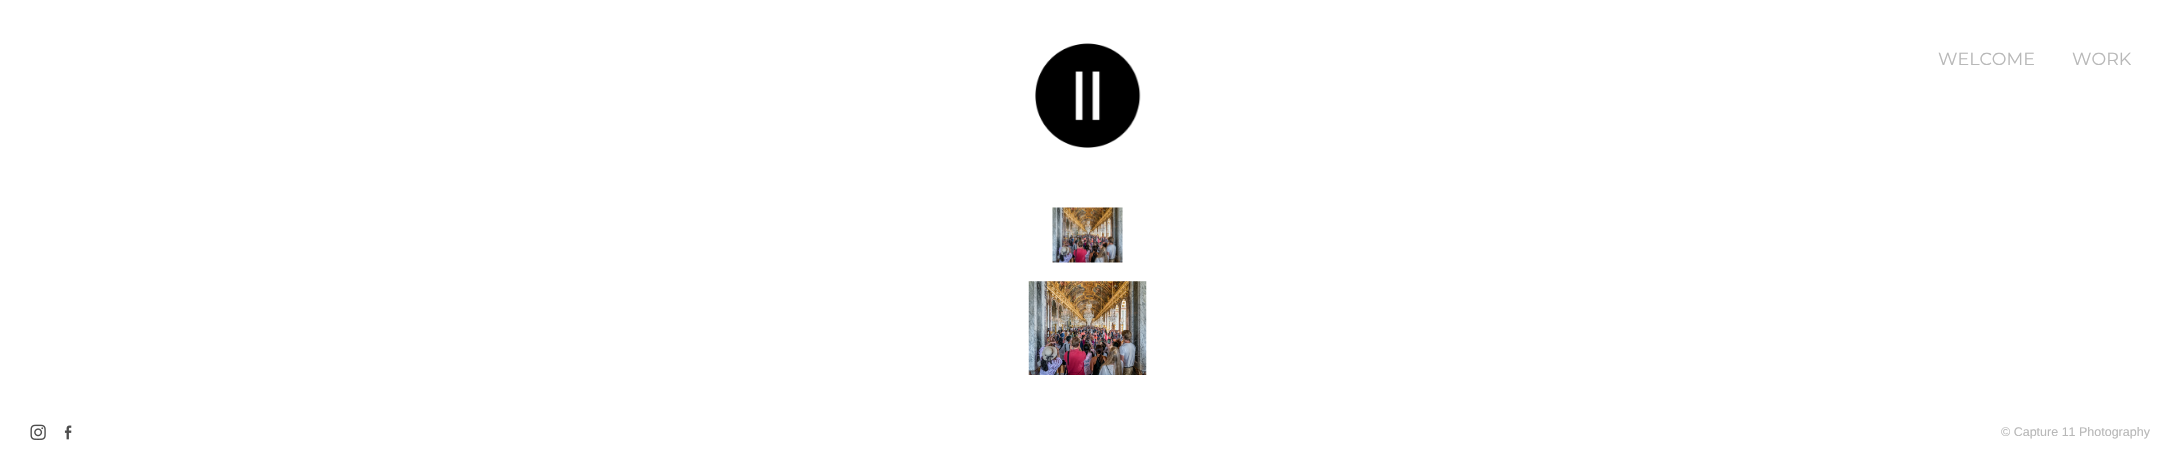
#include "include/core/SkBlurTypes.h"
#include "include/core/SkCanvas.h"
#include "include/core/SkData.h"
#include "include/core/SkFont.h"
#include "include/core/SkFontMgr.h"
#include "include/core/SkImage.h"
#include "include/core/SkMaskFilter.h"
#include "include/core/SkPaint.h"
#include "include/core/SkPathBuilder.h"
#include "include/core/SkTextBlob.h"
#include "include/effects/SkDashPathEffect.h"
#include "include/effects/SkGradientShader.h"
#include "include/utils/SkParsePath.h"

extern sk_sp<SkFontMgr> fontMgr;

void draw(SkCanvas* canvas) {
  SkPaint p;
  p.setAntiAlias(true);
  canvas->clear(SK_ColorWHITE);
  canvas->drawImageRect(SkImages::DeferredFromEncodedData(SkData::MakeFromFileName("images/1.png")), SkRect::MakeLTRB(1035, 43, 1141, 148), SkSamplingOptions());
  canvas->drawImageRect(SkImages::DeferredFromEncodedData(SkData::MakeFromFileName("images/2.png")), SkRect::MakeLTRB(1052, 207, 1123, 263), SkSamplingOptions());
  canvas->drawImageRect(SkImages::DeferredFromEncodedData(SkData::MakeFromFileName("images/3.png")), SkRect::MakeLTRB(1028, 281, 1147, 375), SkSamplingOptions());
  canvas->drawImageRect(SkImages::DeferredFromEncodedData(SkData::MakeFromFileName("images/4.png")), SkRect::MakeLTRB(30, 424, 46, 440), SkSamplingOptions());
  canvas->drawImageRect(SkImages::DeferredFromEncodedData(SkData::MakeFromFileName("images/5.png")), SkRect::MakeLTRB(64, 425, 72, 440), SkSamplingOptions());
  SkFont font1(fontMgr->matchFamilyStyle("Montserrat", SkFontStyle::Normal()), 17.5f);
  font1.setSubpixel(true);
  p.setColor(SkColorSetRGB(184, 184, 184));
  canvas->drawString("WELCOME", 1938, 65, font1, p);
  canvas->drawString("WORK", 2072, 65, font1, p);
  SkFont font2(fontMgr->matchFamilyStyle("Liberation Sans", SkFontStyle::Normal()), 12.5f);
  font2.setSubpixel(true);
  canvas->drawString("© Capture 11 Photography", 2001, 436, font2, p);
}
